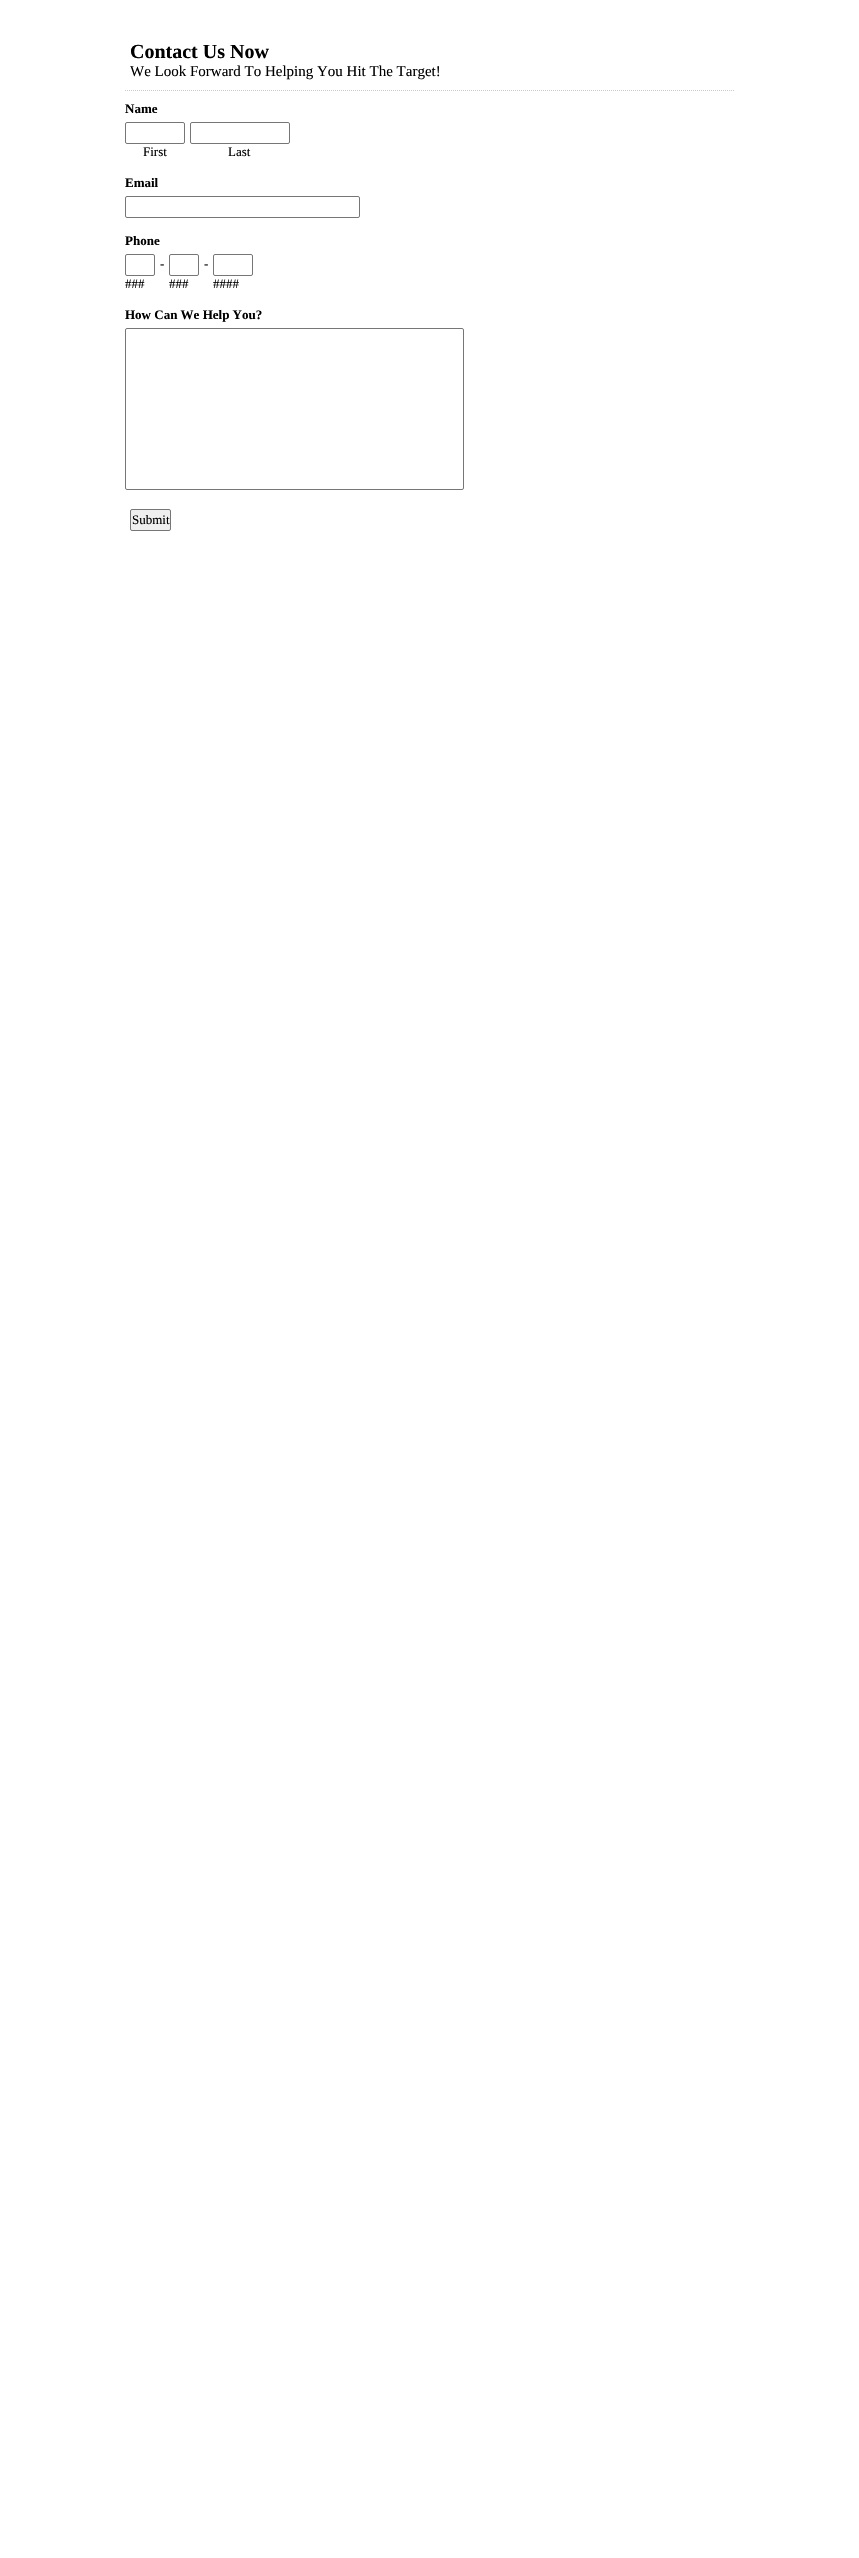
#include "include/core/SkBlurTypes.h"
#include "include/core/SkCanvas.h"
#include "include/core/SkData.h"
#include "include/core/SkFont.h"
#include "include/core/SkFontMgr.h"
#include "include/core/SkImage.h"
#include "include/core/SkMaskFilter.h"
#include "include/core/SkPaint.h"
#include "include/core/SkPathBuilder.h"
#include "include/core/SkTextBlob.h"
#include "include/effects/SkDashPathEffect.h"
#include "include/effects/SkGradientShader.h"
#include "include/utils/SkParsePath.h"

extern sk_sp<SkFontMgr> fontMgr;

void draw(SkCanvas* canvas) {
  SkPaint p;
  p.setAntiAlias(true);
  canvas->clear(SK_ColorWHITE);
  p.setStyle(SkPaint::kStroke_Style);
  p.setStrokeWidth(1);
  p.setColor(SkColorSetRGB(204, 204, 204));
  p.setPathEffect(SkDashPathEffect::Make({{1, 1}}, 0));
  canvas->drawPath(SkPathBuilder().moveTo(125, 90.5f).lineTo(735, 90.5f).detach(), p);
  p.setPathEffect(nullptr);
  p.setColor(SkColorSetRGB(118, 118, 118));
  canvas->drawRoundRect(SkRect::MakeLTRB(125.5f, 122.5f, 184.5f, 143.5f), 1.5f, 1.5f, p);
  canvas->drawRoundRect(SkRect::MakeLTRB(190.5f, 122.5f, 289.5f, 143.5f), 1.5f, 1.5f, p);
  canvas->drawRoundRect(SkRect::MakeLTRB(125.5f, 196.5f, 359.5f, 217.5f), 1.5f, 1.5f, p);
  canvas->drawRoundRect(SkRect::MakeLTRB(125.5f, 254.5f, 154.5f, 275.5f), 1.5f, 1.5f, p);
  canvas->drawRoundRect(SkRect::MakeLTRB(169.5f, 254.5f, 198.5f, 275.5f), 1.5f, 1.5f, p);
  canvas->drawRoundRect(SkRect::MakeLTRB(213.5f, 254.5f, 252.5f, 275.5f), 1.5f, 1.5f, p);
  canvas->drawRoundRect(SkRect::MakeLTRB(125.5f, 328.5f, 463.5f, 489.5f), 1.5f, 1.5f, p);
  p.setStyle(SkPaint::kFill_Style);
  p.setColor(SkColorSetRGB(239, 239, 239));
  canvas->drawRoundRect(SkRect::MakeLTRB(130.5f, 509.5f, 170.5f, 530.5f), 1.5f, 1.5f, p);
  p.setStyle(SkPaint::kStroke_Style);
  p.setColor(SkColorSetRGB(118, 118, 118));
  canvas->drawRoundRect(SkRect::MakeLTRB(130.5f, 509.5f, 170.5f, 530.5f), 1.5f, 1.5f, p);
  SkFont font1(fontMgr->matchFamilyStyle("Liberation Serif", SkFontStyle::Bold()), 20);
  font1.setSubpixel(true);
  p.setStyle(SkPaint::kFill_Style);
  p.setColor(SK_ColorBLACK);
  canvas->drawString("Contact Us Now", 130, 58, font1, p);
  SkFont font2(fontMgr->matchFamilyStyle("Liberation Serif", SkFontStyle::Normal()), 15);
  font2.setSubpixel(true);
  canvas->drawString("We Look Forward To Helping You Hit The Target!", 130, 76, font2, p);
  SkFont font3(fontMgr->matchFamilyStyle("Liberation Serif", SkFontStyle::Bold()), 13);
  font3.setSubpixel(true);
  canvas->drawString("Name", 125, 113, font3, p);
  SkFont font4(fontMgr->matchFamilyStyle("Liberation Serif", SkFontStyle::Normal()), 13);
  font4.setSubpixel(true);
  canvas->drawString("First", 143, 156, font4, p);
  canvas->drawString("Last", 228, 156, font4, p);
  canvas->drawString("Email", 125, 187, font3, p);
  canvas->drawString("Phone", 125, 245, font3, p);
  canvas->drawString("-", 160, 268, font4, p);
  canvas->drawString("-", 204, 268, font4, p);
  canvas->save();
  canvas->clipRect(SkRect::MakeLTRB(125, 228, 735, 297));
  canvas->drawString("###", 125, 288, font4, p);
  canvas->restore();
  canvas->drawString("###", 169, 288, font4, p);
  canvas->drawString("####", 213, 288, font4, p);
  canvas->drawString("How Can We Help You?", 125, 319, font3, p);
  canvas->drawString("Submit", 132, 524, font4, p);
}
